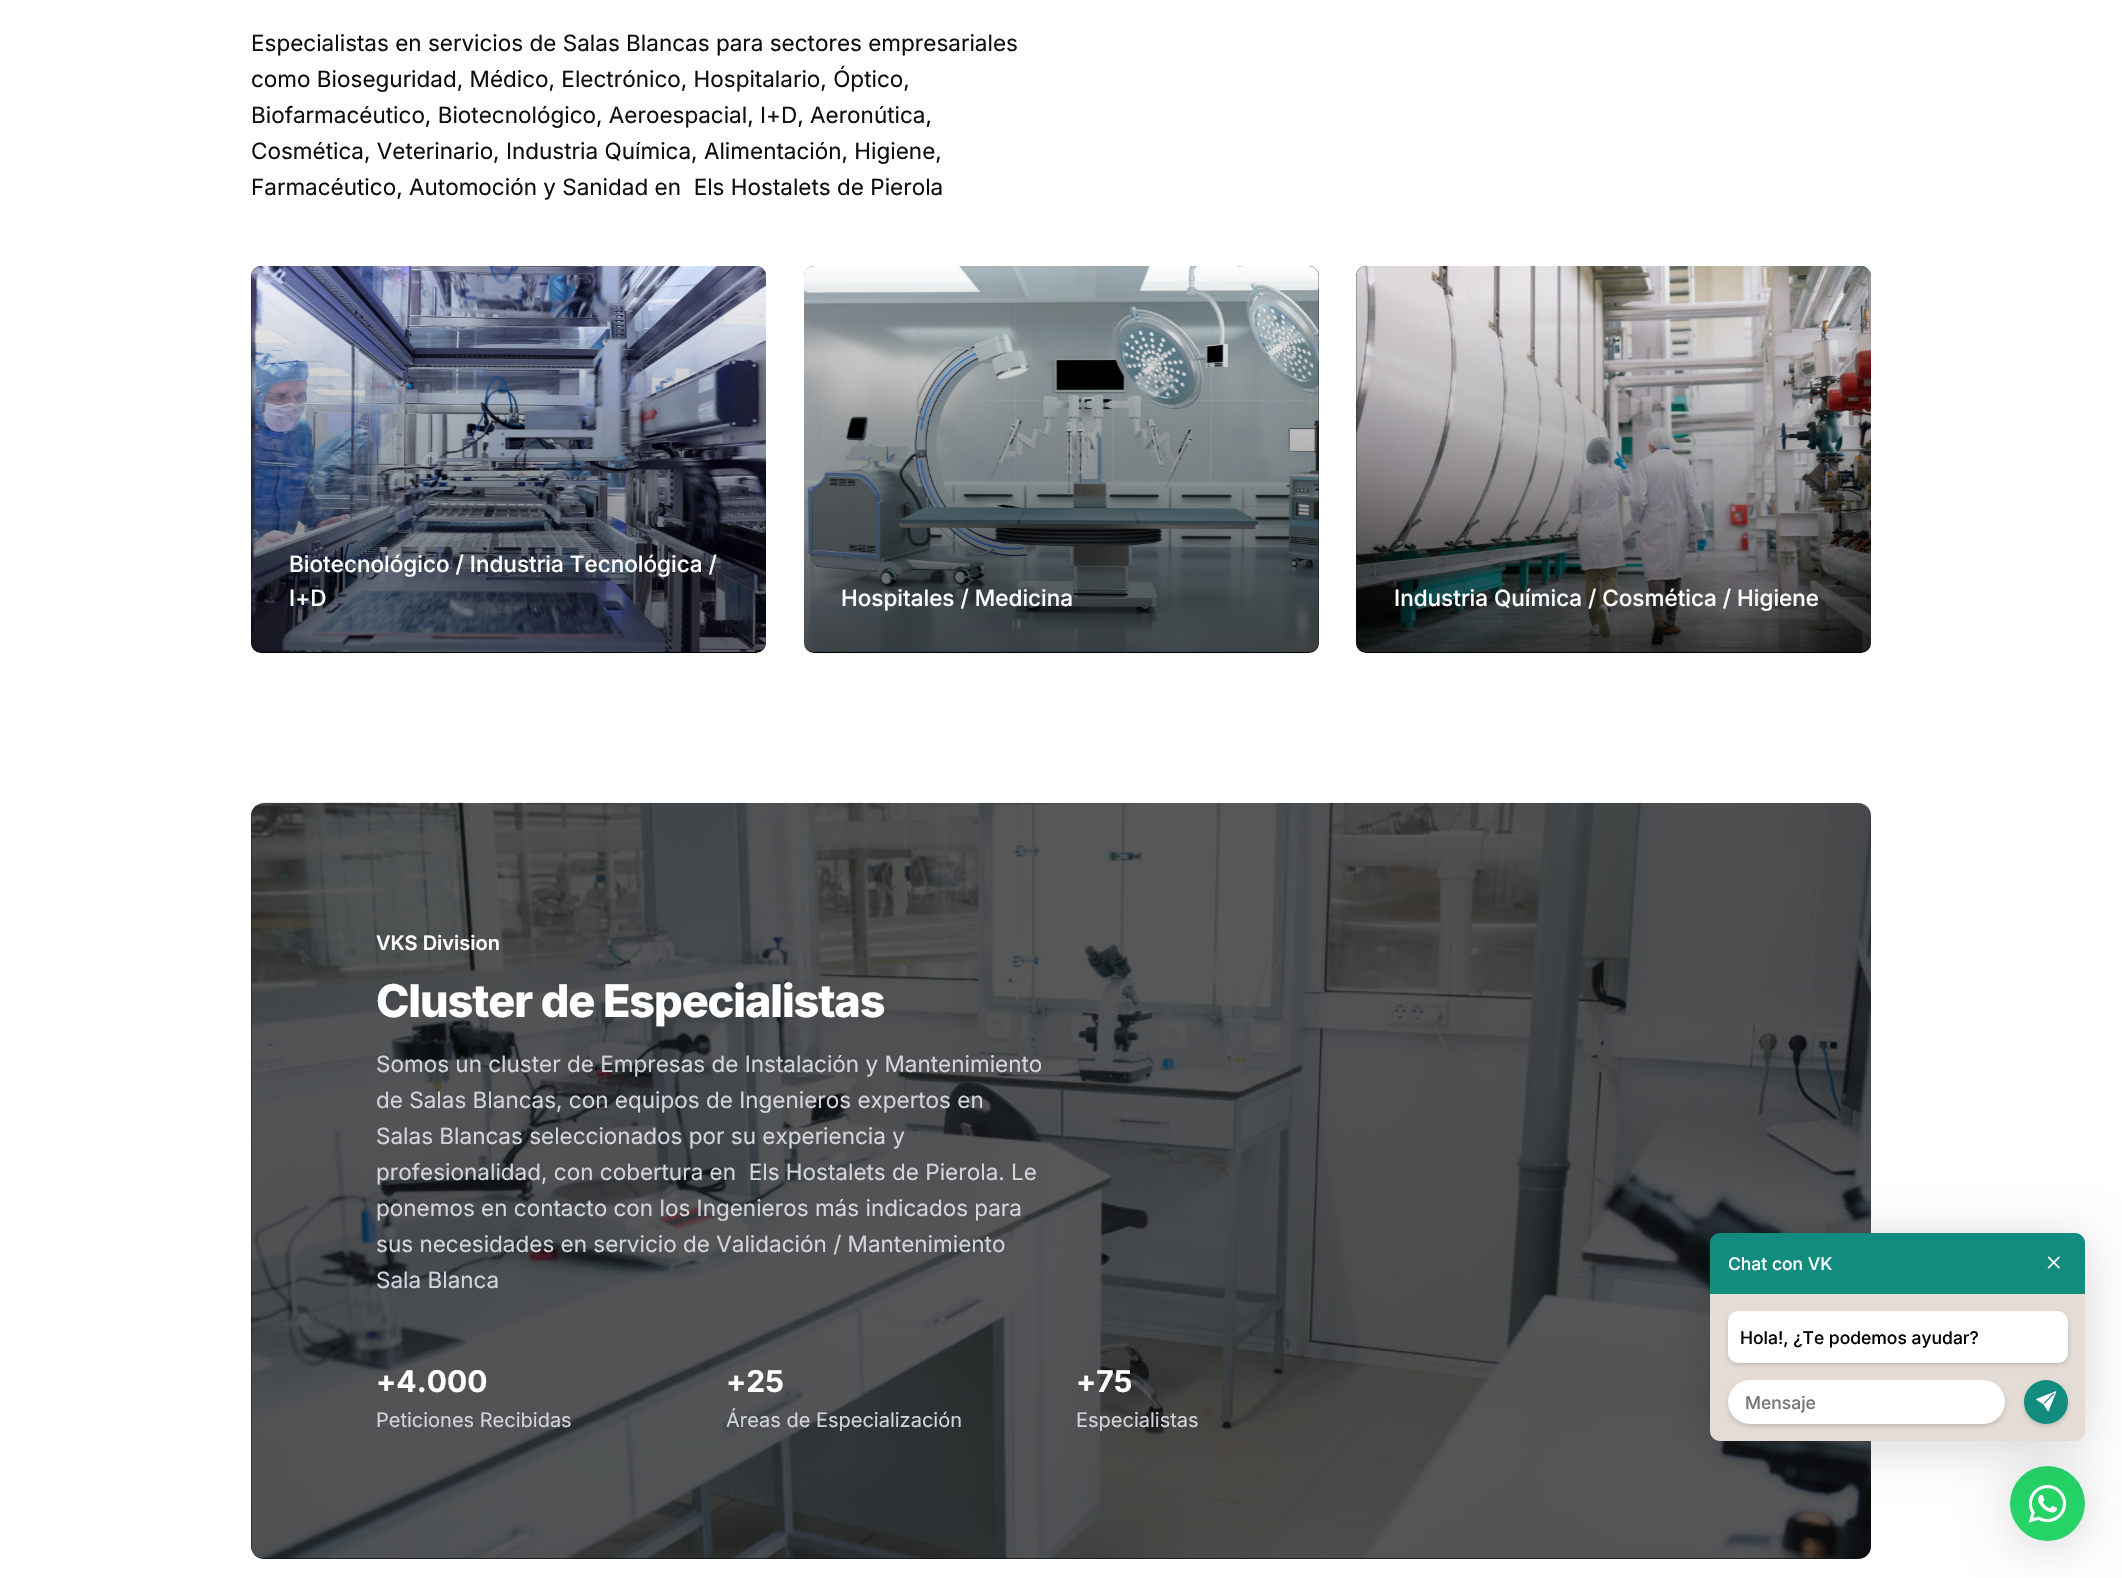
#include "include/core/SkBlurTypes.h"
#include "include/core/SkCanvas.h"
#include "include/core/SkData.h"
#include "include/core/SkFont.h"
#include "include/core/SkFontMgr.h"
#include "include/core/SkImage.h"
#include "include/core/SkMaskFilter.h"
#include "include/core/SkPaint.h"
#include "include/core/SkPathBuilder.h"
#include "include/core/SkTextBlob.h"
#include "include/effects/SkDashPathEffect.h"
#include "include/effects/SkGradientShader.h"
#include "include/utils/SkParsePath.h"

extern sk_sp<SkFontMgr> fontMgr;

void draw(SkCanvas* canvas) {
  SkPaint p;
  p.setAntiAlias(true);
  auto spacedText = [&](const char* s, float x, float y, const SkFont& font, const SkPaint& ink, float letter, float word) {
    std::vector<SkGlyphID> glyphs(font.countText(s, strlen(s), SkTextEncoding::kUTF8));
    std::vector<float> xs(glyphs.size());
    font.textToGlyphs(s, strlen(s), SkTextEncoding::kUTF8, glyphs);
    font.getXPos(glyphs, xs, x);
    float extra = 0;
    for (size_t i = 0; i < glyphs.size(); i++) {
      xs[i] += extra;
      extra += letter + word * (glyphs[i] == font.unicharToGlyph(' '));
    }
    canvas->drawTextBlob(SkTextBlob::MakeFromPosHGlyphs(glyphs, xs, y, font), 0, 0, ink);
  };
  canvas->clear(SK_ColorWHITE);
  p.setColor(SK_ColorBLACK);
  canvas->drawRoundRect(SkRect::MakeLTRB(251, 266, 766, 653), 10, 10, p);
  canvas->drawImageRect(SkImages::DeferredFromEncodedData(SkData::MakeFromFileName("images/1.png")), SkRect::MakeLTRB(251, 266, 766, 652), SkSamplingOptions());
  canvas->drawRoundRect(SkRect::MakeLTRB(804, 266, 1319, 653), 10, 10, p);
  canvas->drawImageRect(SkImages::DeferredFromEncodedData(SkData::MakeFromFileName("images/2.png")), SkRect::MakeLTRB(804, 266, 1319, 652), SkSamplingOptions());
  canvas->drawRoundRect(SkRect::MakeLTRB(1356, 266, 1871, 653), 10, 10, p);
  canvas->drawImageRect(SkImages::DeferredFromEncodedData(SkData::MakeFromFileName("images/3.png")), SkRect::MakeLTRB(1356, 266, 1871, 652), SkSamplingOptions());
  p.setColor(SkColorSetRGB(14, 14, 14));
  canvas->drawRoundRect(SkRect::MakeLTRB(251, 803, 1871, 1559), 13, 13, p);
  canvas->drawImageRect(SkImages::DeferredFromEncodedData(SkData::MakeFromFileName("images/4.png")), SkRect::MakeLTRB(251, 802, 1871, 1559), SkSamplingOptions());
  p.setColor(SkColorSetARGB(41, 0, 0, 0));
  p.setMaskFilter(SkMaskFilter::MakeBlur(kNormal_SkBlurStyle, 25));
  canvas->drawRoundRect(SkRect::MakeLTRB(2010, 1473, 2085, 1548), 37.5f, 37.5f, p);
  p.setMaskFilter(nullptr);
  p.setColor(SkColorSetRGB(37, 211, 102));
  canvas->drawCircle(2047.5f, 1503.5f, 37.5f, p);
  canvas->drawImageRect(SkImages::DeferredFromEncodedData(SkData::MakeFromFileName("images/7.png")), SkRect::MakeLTRB(2028, 1485, 2067, 1523), SkSamplingOptions());
  p.setColor(SkColorSetARGB(41, 0, 0, 0));
  p.setMaskFilter(SkMaskFilter::MakeBlur(kNormal_SkBlurStyle, 25));
  canvas->drawRoundRect(SkRect::MakeLTRB(1710, 1239, 2085, 1448), 10, 10, p);
  p.setMaskFilter(nullptr);
  p.setColor(SkColorSetRGB(18, 140, 126));
  canvas->drawPath(SkPathBuilder().moveTo(1720, 1233).lineTo(2075, 1233).cubicTo(2080.5f, 1233, 2085, 1237.5f, 2085, 1243).lineTo(2085, 1294).lineTo(1710, 1294).lineTo(1710, 1243).cubicTo(1710, 1237.5f, 1714.5f, 1233, 1720, 1233).close().detach(), p);
  canvas->drawImageRect(SkImages::DeferredFromEncodedData(SkData::MakeFromFileName("images/5.png")), SkRect::MakeLTRB(2047, 1256, 2060, 1269), SkSamplingOptions());
  p.setColor(SkColorSetRGB(229, 220, 213));
  canvas->drawPath(SkPathBuilder().moveTo(1710, 1294).lineTo(2085, 1294).lineTo(2085, 1431).cubicTo(2085, 1436.5f, 2080.5f, 1441, 2075, 1441).lineTo(1720, 1441).cubicTo(1714.5f, 1441, 1710, 1436.5f, 1710, 1431).close().detach(), p);
  p.setColor(SkColorSetARGB(41, 0, 0, 0));
  p.setMaskFilter(SkMaskFilter::MakeBlur(kNormal_SkBlurStyle, 2.5f));
  canvas->drawRoundRect(SkRect::MakeLTRB(1728, 1314, 2068, 1365), 10, 10, p);
  p.setMaskFilter(nullptr);
  p.setColor(SK_ColorWHITE);
  canvas->drawRoundRect(SkRect::MakeLTRB(1728, 1311, 2068, 1363), 10, 10, p);
  p.setColor(SkColorSetARGB(41, 0, 0, 0));
  p.setMaskFilter(SkMaskFilter::MakeBlur(kNormal_SkBlurStyle, 2.5f));
  canvas->drawRoundRect(SkRect::MakeLTRB(1728, 1383, 2005, 1426), 21.5f, 21.5f, p);
  p.setMaskFilter(nullptr);
  p.setColor(SK_ColorWHITE);
  canvas->drawRoundRect(SkRect::MakeLTRB(1728, 1380, 2005, 1424), 22, 22, p);
  p.setColor(SkColorSetARGB(41, 0, 0, 0));
  p.setMaskFilter(SkMaskFilter::MakeBlur(kNormal_SkBlurStyle, 2.5f));
  canvas->drawRoundRect(SkRect::MakeLTRB(2024, 1383, 2068, 1426), 21.5f, 21.5f, p);
  p.setMaskFilter(nullptr);
  p.setColor(SkColorSetRGB(18, 140, 126));
  canvas->drawCircle(2046, 1402, 22, p);
  canvas->drawImageRect(SkImages::DeferredFromEncodedData(SkData::MakeFromFileName("images/6.png")), SkRect::MakeLTRB(2036, 1391, 2057, 1412), SkSamplingOptions());
  SkFont font1(fontMgr->matchFamilyStyle("Inter", SkFontStyle::Normal()), 22.5f);
  font1.setSubpixel(true);
  p.setColor(SkColorSetRGB(14, 14, 14));
  canvas->drawString("Especialistas en servicios de Salas Blancas para sectores empresariales", 251, 51, font1, p);
  canvas->drawString("como Bioseguridad, Médico, Electrónico, Hospitalario, Óptico,", 251, 87, font1, p);
  canvas->drawString("Biofarmacéutico, Biotecnológico, Aeroespacial, I+D, Aeronútica,", 251, 123, font1, p);
  canvas->drawString("Cosmética, Veterinario, Industria Química, Alimentación, Higiene,", 251, 159, font1, p);
  canvas->drawString("Farmacéutico, Automoción y Sanidad en  Els Hostalets de Pierola", 251, 195, font1, p);
  SkFont font2(fontMgr->matchFamilyStyle("Inter", SkFontStyle(500, SkFontStyle::kNormal_Width, SkFontStyle::kUpright_Slant)), 22.5f);
  font2.setSubpixel(true);
  p.setColor(SK_ColorWHITE);
  canvas->drawString("Biotecnológico / Industria Tecnológica /", 289, 572, font2, p);
  canvas->drawString("I+D", 289, 606, font2, p);
  canvas->drawString("Hospitales / Medicina", 841, 606, font2, p);
  canvas->drawString("Industria Química / Cosmética / Higiene", 1394, 606, font2, p);
  SkFont font3(fontMgr->matchFamilyStyle("Inter", SkFontStyle(600, SkFontStyle::kNormal_Width, SkFontStyle::kUpright_Slant)), 20);
  font3.setSubpixel(true);
  canvas->drawString("VKS Division", 376, 950, font3, p);
  SkFont font4(fontMgr->matchFamilyStyle("Inter", SkFontStyle(800, SkFontStyle::kNormal_Width, SkFontStyle::kUpright_Slant)), 45);
  font4.setSubpixel(true);
  spacedText("Cluster de Especialistas", 376, 1017, font4, p, -1.1f, 0);
  p.setColor(SkColorSetRGB(209, 213, 219));
  canvas->drawString("Somos un cluster de Empresas de Instalación y Mantenimiento", 376, 1072, font1, p);
  canvas->drawString("de Salas Blancas, con equipos de Ingenieros expertos en", 376, 1108, font1, p);
  canvas->drawString("Salas Blancas seleccionados por su experiencia y", 376, 1144, font1, p);
  canvas->drawString("profesionalidad, con cobertura en  Els Hostalets de Pierola. Le", 376, 1180, font1, p);
  canvas->drawString("ponemos en contacto con los Ingenieros más indicados para", 376, 1216, font1, p);
  canvas->drawString("sus necesidades en servicio de Validación / Mantenimiento", 376, 1252, font1, p);
  canvas->drawString("Sala Blanca", 376, 1288, font1, p);
  SkFont font5(fontMgr->matchFamilyStyle("Inter", SkFontStyle::Bold()), 30);
  font5.setSubpixel(true);
  p.setColor(SK_ColorWHITE);
  canvas->drawString("+4.000", 376, 1392, font5, p);
  SkFont font6(fontMgr->matchFamilyStyle("Inter", SkFontStyle::Normal()), 20);
  font6.setSubpixel(true);
  p.setColor(SkColorSetRGB(209, 213, 219));
  canvas->drawString("Peticiones Recibidas", 376, 1427, font6, p);
  p.setColor(SK_ColorWHITE);
  canvas->drawString("+25", 726, 1392, font5, p);
  p.setColor(SkColorSetRGB(209, 213, 219));
  canvas->drawString("Áreas de Especialización", 726, 1427, font6, p);
  p.setColor(SK_ColorWHITE);
  canvas->drawString("+75", 1076, 1392, font5, p);
  p.setColor(SkColorSetRGB(209, 213, 219));
  canvas->drawString("Especialistas", 1076, 1427, font6, p);
  SkFont font7(fontMgr->matchFamilyStyle("Inter", SkFontStyle(500, SkFontStyle::kNormal_Width, SkFontStyle::kUpright_Slant)), 17.5f);
  font7.setSubpixel(true);
  p.setColor(SK_ColorWHITE);
  canvas->drawString("Chat con VK", 1728, 1270, font7, p);
  p.setColor(SK_ColorBLACK);
  canvas->drawString("Hola!, ¿Te podemos ayudar?", 1740, 1344, font7, p);
  p.setColor(SkColorSetRGB(117, 117, 117));
  canvas->drawString("Mensaje", 1745, 1409, font7, p);
}
